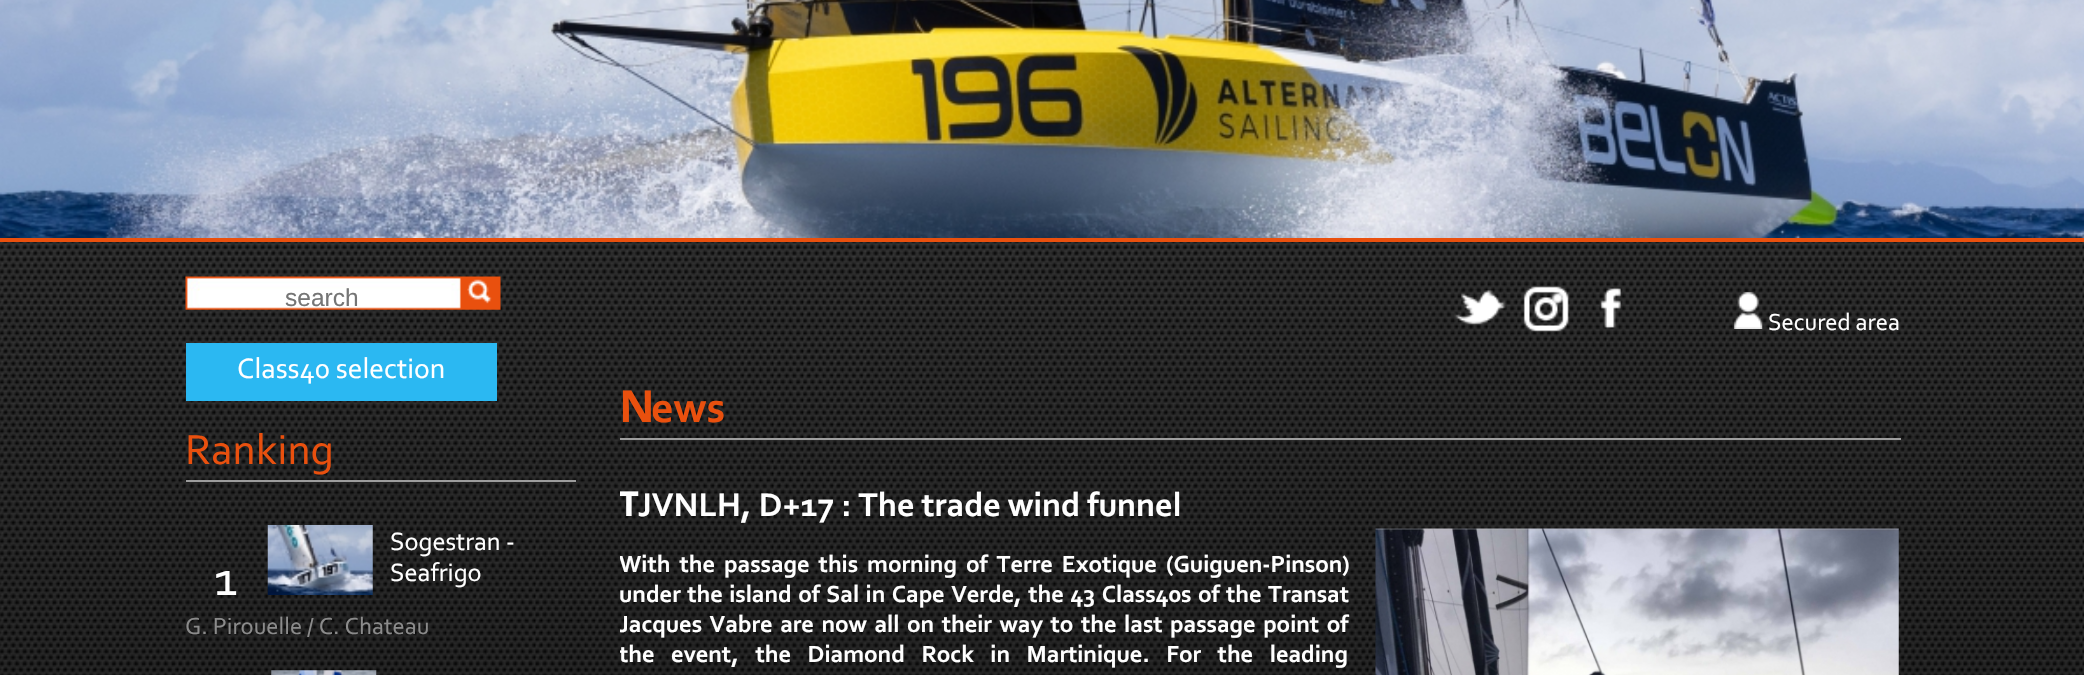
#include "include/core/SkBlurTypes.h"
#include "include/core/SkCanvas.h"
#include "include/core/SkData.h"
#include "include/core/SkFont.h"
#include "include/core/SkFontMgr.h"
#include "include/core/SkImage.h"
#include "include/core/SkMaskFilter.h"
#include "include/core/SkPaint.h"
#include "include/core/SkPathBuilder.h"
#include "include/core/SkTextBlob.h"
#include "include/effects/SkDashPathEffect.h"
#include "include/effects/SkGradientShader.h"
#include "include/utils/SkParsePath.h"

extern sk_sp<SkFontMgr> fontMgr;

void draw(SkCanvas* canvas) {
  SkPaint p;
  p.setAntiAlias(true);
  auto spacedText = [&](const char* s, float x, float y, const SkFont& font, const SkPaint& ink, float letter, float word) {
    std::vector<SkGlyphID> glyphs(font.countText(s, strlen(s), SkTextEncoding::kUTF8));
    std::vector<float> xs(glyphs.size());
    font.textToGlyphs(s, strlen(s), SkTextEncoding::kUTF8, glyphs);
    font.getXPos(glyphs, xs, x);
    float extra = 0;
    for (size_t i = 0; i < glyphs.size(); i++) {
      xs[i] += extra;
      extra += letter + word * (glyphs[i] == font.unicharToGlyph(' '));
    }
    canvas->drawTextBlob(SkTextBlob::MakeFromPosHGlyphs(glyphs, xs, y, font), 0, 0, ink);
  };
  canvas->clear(SK_ColorWHITE);
  canvas->drawImageRect(SkImages::DeferredFromEncodedData(SkData::MakeFromFileName("images/1.png")), SkRect::MakeLTRB(0, 242, 2084, 675), SkSamplingOptions());
  p.setColor(SkColorSetRGB(233, 80, 14));
  canvas->drawRect(SkRect::MakeLTRB(0, 238, 2084, 242), p);
  canvas->drawImageRect(SkImages::DeferredFromEncodedData(SkData::MakeFromFileName("images/2.png")), SkRect::MakeLTRB(0, 0, 2084, 238), SkSamplingOptions());
  canvas->drawImageRect(SkImages::DeferredFromEncodedData(SkData::MakeFromFileName("images/3.png")), SkRect::MakeLTRB(185, 276, 501, 310), SkSamplingOptions());
  canvas->drawImageRect(SkImages::DeferredFromEncodedData(SkData::MakeFromFileName("images/4.png")), SkRect::MakeLTRB(467, 279, 492, 304), SkSamplingOptions());
  p.setColor(SkColorSetRGB(43, 184, 242));
  canvas->drawRect(SkRect::MakeLTRB(186, 343, 497, 401), p);
  p.setColor(SkColorSetRGB(157, 157, 157));
  canvas->drawRect(SkRect::MakeLTRB(186, 480, 576, 482), p);
  canvas->drawImageRect(SkImages::DeferredFromEncodedData(SkData::MakeFromFileName("images/5.png")), SkRect::MakeLTRB(267, 525, 373, 595), SkSamplingOptions());
  canvas->drawImageRect(SkImages::DeferredFromEncodedData(SkData::MakeFromFileName("images/6.png")), SkRect::MakeLTRB(271, 670, 377, 675), SkSamplingOptions());
  canvas->drawImageRect(SkImages::DeferredFromEncodedData(SkData::MakeFromFileName("images/7.png")), SkRect::MakeLTRB(1454, 290, 1506, 325), SkSamplingOptions());
  canvas->drawImageRect(SkImages::DeferredFromEncodedData(SkData::MakeFromFileName("images/8.png")), SkRect::MakeLTRB(1523, 286, 1569, 332), SkSamplingOptions());
  canvas->drawImageRect(SkImages::DeferredFromEncodedData(SkData::MakeFromFileName("images/9.png")), SkRect::MakeLTRB(1600, 288, 1621, 328), SkSamplingOptions());
  canvas->drawImageRect(SkImages::DeferredFromEncodedData(SkData::MakeFromFileName("images/10.png")), SkRect::MakeLTRB(1734, 292, 1763, 329), SkSamplingOptions());
  canvas->drawRect(SkRect::MakeLTRB(620, 438, 1901, 440), p);
  canvas->drawImageRect(SkImages::DeferredFromEncodedData(SkData::MakeFromFileName("images/11.png")), SkRect::MakeLTRB(1375, 528, 1899, 675), SkSamplingOptions());
  SkFont font1(fontMgr->matchFamilyStyle("Liberation Sans", SkFontStyle::Normal()), 24.5f);
  font1.setSubpixel(true);
  p.setColor(SkColorSetRGB(117, 117, 117));
  canvas->drawString("search", 285, 306, font1, p);
  SkFont font2(fontMgr->matchFamilyStyle("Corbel", SkFontStyle::Normal()), 29.5f);
  font2.setSubpixel(true);
  p.setColor(SK_ColorWHITE);
  canvas->drawString("Class40 selection", 237, 378, font2, p);
  SkFont font3(fontMgr->matchFamilyStyle("Corbel", SkFontStyle::Normal()), 44);
  font3.setSubpixel(true);
  p.setColor(SkColorSetRGB(233, 80, 14));
  canvas->drawString("Ranking", 185, 464, font3, p);
  SkFont font4(fontMgr->matchFamilyStyle("Corbel", SkFontStyle::Normal()), 52);
  font4.setSubpixel(true);
  p.setColor(SK_ColorWHITE);
  canvas->drawString("1", 214, 595, font4, p);
  SkFont font5(fontMgr->matchFamilyStyle("Corbel", SkFontStyle::Normal()), 26.25f);
  font5.setSubpixel(true);
  canvas->drawString("Sogestran -", 390, 550, font5, p);
  canvas->drawString("Seafrigo", 390, 581, font5, p);
  SkFont font6(fontMgr->matchFamilyStyle("Corbel", SkFontStyle::Normal()), 24.5f);
  font6.setSubpixel(true);
  p.setColor(SkColorSetRGB(139, 139, 139));
  canvas->drawString("G. Pirouelle / C. Chateau", 185, 634, font6, p);
  p.setColor(SK_ColorWHITE);
  canvas->drawString("Secured area", 1768, 330, font6, p);
  SkFont font7(fontMgr->matchFamilyStyle("Noto Sans", SkFontStyle::Bold()), 44);
  font7.setSubpixel(true);
  p.setColor(SkColorSetRGB(233, 80, 14));
  canvas->drawString("N", 619, 422, font7, p);
  SkFont font8(fontMgr->matchFamilyStyle("Corbel", SkFontStyle::Bold()), 44);
  font8.setSubpixel(true);
  canvas->drawString("ews", 651, 422, font8, p);
  canvas->save();
  canvas->clipRect(SkRect::MakeLTRB(620, 350, 1901, 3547));
  SkFont font9(fontMgr->matchFamilyStyle("Noto Sans", SkFontStyle::Bold()), 34.25f);
  font9.setSubpixel(true);
  p.setColor(SK_ColorWHITE);
  canvas->drawString("T", 619, 516, font9, p);
  canvas->restore();
  SkFont font10(fontMgr->matchFamilyStyle("Corbel", SkFontStyle::Bold()), 34.25f);
  font10.setSubpixel(true);
  canvas->drawString("JVNLH, D+17 : The trade wind funnel", 638, 516, font10, p);
  canvas->save();
  canvas->clipRect(SkRect::MakeLTRB(620, 350, 1901, 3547));
  SkFont font11(fontMgr->matchFamilyStyle("Corbel", SkFontStyle::Bold()), 24.5f);
  font11.setSubpixel(true);
  spacedText("With the passage this morning of Terre Exotique (Guiguen-Pinson)", 619, 572, font11, p, 0, 4);
  canvas->restore();
  spacedText("under the island of Sal in Cape Verde, the 43 Class40s of the Transat", 619, 602, font11, p, 0, 1.4f);
  canvas->save();
  canvas->clipRect(SkRect::MakeLTRB(620, 350, 1901, 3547));
  spacedText("Jacques Vabre are now all on their way to the last passage point of", 619, 632, font11, p, 0, 2.5f);
  spacedText("the event, the Diamond Rock in Martinique. For the leading", 619, 662, font11, p, 0, 11.5f);
  canvas->restore();
}
